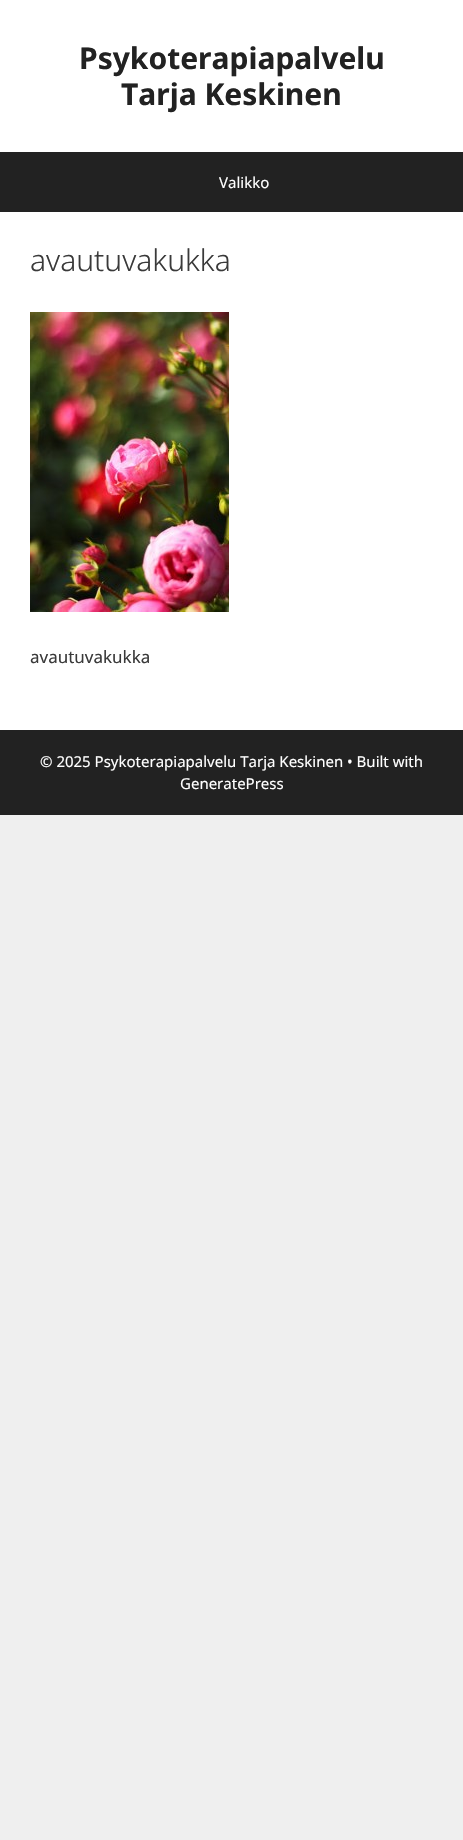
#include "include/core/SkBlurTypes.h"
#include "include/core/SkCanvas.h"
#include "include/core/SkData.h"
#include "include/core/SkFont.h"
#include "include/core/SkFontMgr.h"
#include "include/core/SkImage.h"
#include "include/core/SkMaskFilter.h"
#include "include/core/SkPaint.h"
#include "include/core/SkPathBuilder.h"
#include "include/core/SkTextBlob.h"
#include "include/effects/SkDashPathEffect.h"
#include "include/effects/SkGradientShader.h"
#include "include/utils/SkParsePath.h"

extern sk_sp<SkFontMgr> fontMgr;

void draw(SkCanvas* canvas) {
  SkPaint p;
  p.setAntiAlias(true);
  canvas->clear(SkColorSetRGB(239, 239, 239));
  p.setColor(SK_ColorWHITE);
  canvas->drawRect(SkRect::MakeLTRB(0, 0, 463, 152), p);
  p.setColor(SkColorSetRGB(34, 34, 34));
  canvas->drawRect(SkRect::MakeLTRB(0, 152, 463, 212), p);
  p.setColor(SK_ColorWHITE);
  canvas->drawRect(SkRect::MakeLTRB(0, 212, 463, 730), p);
  canvas->drawImageRect(SkImages::DeferredFromEncodedData(SkData::MakeFromFileName("images/1.png")), SkRect::MakeLTRB(30, 312, 229, 612), SkSamplingOptions());
  p.setColor(SkColorSetRGB(34, 34, 34));
  canvas->drawRect(SkRect::MakeLTRB(0, 730, 463, 815), p);
  SkFont font1(fontMgr->matchFamilyStyle("Noto Sans", SkFontStyle::Bold()), 30);
  font1.setSubpixel(true);
  canvas->drawString("Psykoterapiapalvelu", 79, 69, font1, p);
  canvas->drawString("Tarja Keskinen", 121, 105, font1, p);
  SkFont font2(fontMgr->matchFamilyStyle("Noto Sans", SkFontStyle::Normal()), 15);
  font2.setSubpixel(true);
  p.setColor(SK_ColorWHITE);
  canvas->drawString("Valikko", 219, 188, font2, p);
  SkFont font3(fontMgr->matchFamilyStyle("Noto Sans", SkFontStyle(300, SkFontStyle::kNormal_Width, SkFontStyle::kUpright_Slant)), 30);
  font3.setSubpixel(true);
  p.setColor(SkColorSetRGB(58, 58, 58));
  canvas->drawString("avautuvakukka", 30, 271, font3, p);
  SkFont font4(fontMgr->matchFamilyStyle("Noto Sans", SkFontStyle::Normal()), 17);
  font4.setSubpixel(true);
  canvas->drawString("avautuvakukka", 30, 663, font4, p);
  p.setColor(SK_ColorWHITE);
  canvas->drawString("© 2025 Psykoterapiapalvelu Tarja Keskinen • Built with", 40, 767, font2, p);
  canvas->drawString("GeneratePress", 180, 789, font2, p);
}
